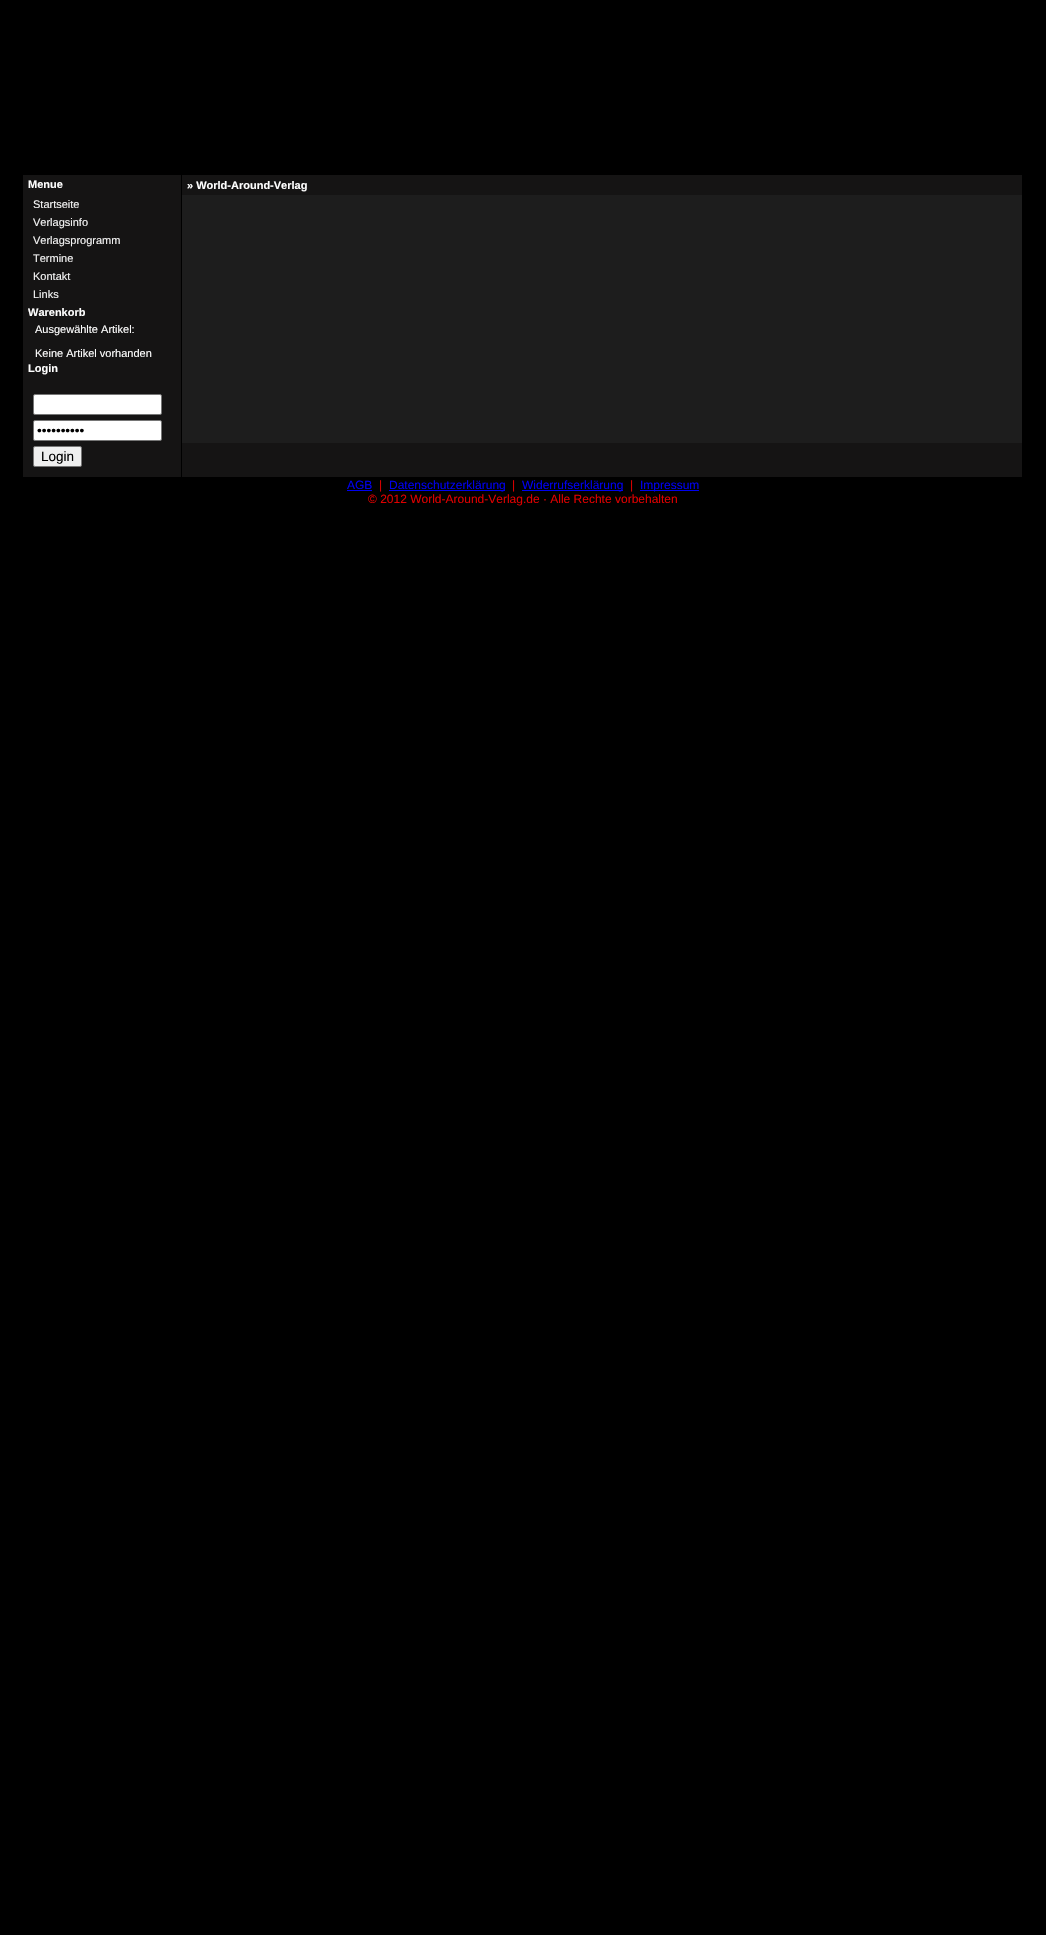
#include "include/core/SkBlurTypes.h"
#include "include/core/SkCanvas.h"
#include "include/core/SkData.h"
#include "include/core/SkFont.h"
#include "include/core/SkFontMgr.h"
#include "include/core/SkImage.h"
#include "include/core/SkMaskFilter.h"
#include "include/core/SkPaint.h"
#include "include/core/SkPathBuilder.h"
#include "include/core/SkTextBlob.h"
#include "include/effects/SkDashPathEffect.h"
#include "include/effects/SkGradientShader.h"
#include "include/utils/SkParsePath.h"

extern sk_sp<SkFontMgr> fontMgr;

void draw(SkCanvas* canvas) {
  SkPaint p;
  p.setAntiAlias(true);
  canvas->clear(SK_ColorBLACK);
  p.setColor(SkColorSetRGB(21, 20, 20));
  canvas->drawRect(SkRect::MakeLTRB(23, 175, 181, 477), p);
  p.setColor(SK_ColorWHITE);
  canvas->drawRoundRect(SkRect::MakeLTRB(33.5f, 394.5f, 161.5f, 414.5f), 1.5f, 1.5f, p);
  p.setStyle(SkPaint::kStroke_Style);
  p.setStrokeWidth(1);
  p.setColor(SkColorSetRGB(118, 118, 118));
  canvas->drawRoundRect(SkRect::MakeLTRB(33.5f, 394.5f, 161.5f, 414.5f), 1.5f, 1.5f, p);
  p.setStyle(SkPaint::kFill_Style);
  p.setColor(SK_ColorWHITE);
  canvas->drawRoundRect(SkRect::MakeLTRB(33.5f, 420.5f, 161.5f, 440.5f), 1.5f, 1.5f, p);
  p.setStyle(SkPaint::kStroke_Style);
  p.setColor(SkColorSetRGB(118, 118, 118));
  canvas->drawRoundRect(SkRect::MakeLTRB(33.5f, 420.5f, 161.5f, 440.5f), 1.5f, 1.5f, p);
  p.setStyle(SkPaint::kFill_Style);
  p.setColor(SkColorSetRGB(239, 239, 239));
  canvas->drawRoundRect(SkRect::MakeLTRB(33.5f, 446.5f, 81.5f, 466.5f), 1.5f, 1.5f, p);
  p.setStyle(SkPaint::kStroke_Style);
  p.setColor(SkColorSetRGB(118, 118, 118));
  canvas->drawRoundRect(SkRect::MakeLTRB(33.5f, 446.5f, 81.5f, 466.5f), 1.5f, 1.5f, p);
  p.setStyle(SkPaint::kFill_Style);
  p.setColor(SkColorSetRGB(21, 20, 20));
  canvas->drawRect(SkRect::MakeLTRB(182, 175, 1022, 477), p);
  p.setColor(SkColorSetRGB(29, 29, 29));
  canvas->drawRect(SkRect::MakeLTRB(182, 195, 1022, 443), p);
  p.setColor(SkColorSetRGB(0, 0, 238));
  canvas->drawRect(SkRect::MakeLTRB(347, 490, 372, 491), p);
  canvas->drawRect(SkRect::MakeLTRB(389, 490, 505, 491), p);
  canvas->drawRect(SkRect::MakeLTRB(522, 490, 623, 491), p);
  canvas->drawRect(SkRect::MakeLTRB(640, 490, 699, 491), p);
  SkFont font1(fontMgr->matchFamilyStyle("Liberation Sans", SkFontStyle::Bold()), 11);
  font1.setSubpixel(true);
  p.setColor(SK_ColorWHITE);
  canvas->drawString("Menue", 28, 188, font1, p);
  SkFont font2(fontMgr->matchFamilyStyle("Liberation Sans", SkFontStyle::Normal()), 11);
  font2.setSubpixel(true);
  p.setColor(SkColorSetRGB(244, 244, 244));
  canvas->drawString("Startseite", 33, 208, font2, p);
  canvas->drawString("Verlagsinfo", 33, 226, font2, p);
  canvas->drawString("Verlagsprogramm", 33, 244, font2, p);
  canvas->drawString("Termine", 33, 262, font2, p);
  canvas->drawString("Kontakt", 33, 280, font2, p);
  canvas->drawString("Links", 33, 298, font2, p);
  p.setColor(SK_ColorWHITE);
  canvas->drawString("Warenkorb", 28, 316, font1, p);
  canvas->drawString("Ausgewählte Artikel:", 35, 333, font2, p);
  canvas->drawString("Keine Artikel vorhanden", 35, 357, font2, p);
  canvas->drawString("Login", 28, 372, font1, p);
  SkFont font3(fontMgr->matchFamilyStyle("Liberation Sans", SkFontStyle::Normal()), 13.5f);
  font3.setSubpixel(true);
  p.setColor(SK_ColorBLACK);
  canvas->drawString("••••••••••", 37, 435, font3, p);
  canvas->drawString("Login", 41, 461, font3, p);
  p.setColor(SK_ColorWHITE);
  canvas->drawString("» World-Around-Verlag", 187, 189, font1, p);
  SkFont font4(fontMgr->matchFamilyStyle("Liberation Sans", SkFontStyle::Normal()), 12);
  font4.setSubpixel(true);
  p.setColor(SkColorSetRGB(0, 0, 238));
  canvas->drawString("AGB", 347, 489, font4, p);
  p.setColor(SkColorSetRGB(221, 0, 0));
  canvas->drawString("|", 379, 489, font4, p);
  p.setColor(SkColorSetRGB(0, 0, 238));
  canvas->drawString("Datenschutzerklärung", 389, 489, font4, p);
  p.setColor(SkColorSetRGB(221, 0, 0));
  canvas->drawString("|", 512, 489, font4, p);
  p.setColor(SkColorSetRGB(0, 0, 238));
  canvas->drawString("Widerrufserklärung", 522, 489, font4, p);
  p.setColor(SkColorSetRGB(221, 0, 0));
  canvas->drawString("|", 630, 489, font4, p);
  p.setColor(SkColorSetRGB(0, 0, 238));
  canvas->drawString("Impressum", 640, 489, font4, p);
  p.setColor(SkColorSetRGB(221, 0, 0));
  canvas->drawString("© 2012 World-Around-Verlag.de · Alle Rechte vorbehalten", 368, 503, font4, p);
}
